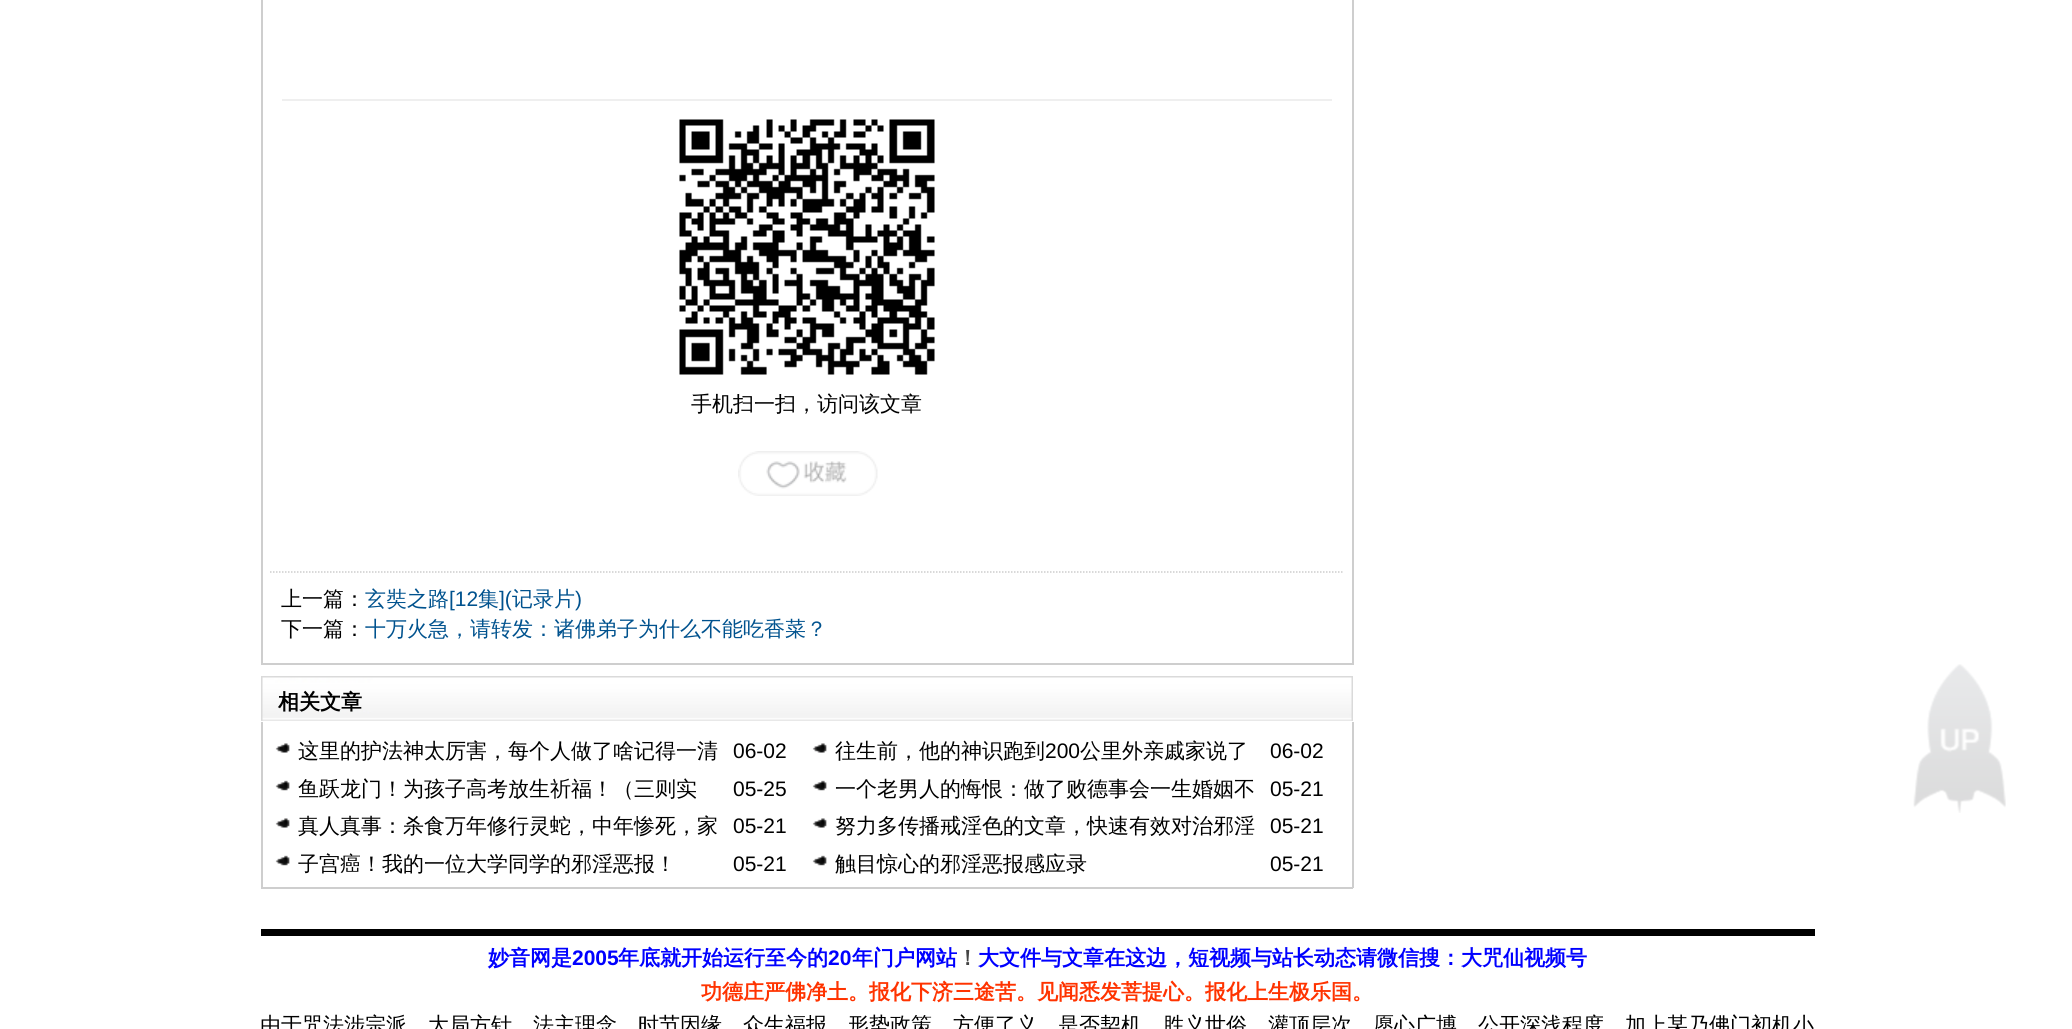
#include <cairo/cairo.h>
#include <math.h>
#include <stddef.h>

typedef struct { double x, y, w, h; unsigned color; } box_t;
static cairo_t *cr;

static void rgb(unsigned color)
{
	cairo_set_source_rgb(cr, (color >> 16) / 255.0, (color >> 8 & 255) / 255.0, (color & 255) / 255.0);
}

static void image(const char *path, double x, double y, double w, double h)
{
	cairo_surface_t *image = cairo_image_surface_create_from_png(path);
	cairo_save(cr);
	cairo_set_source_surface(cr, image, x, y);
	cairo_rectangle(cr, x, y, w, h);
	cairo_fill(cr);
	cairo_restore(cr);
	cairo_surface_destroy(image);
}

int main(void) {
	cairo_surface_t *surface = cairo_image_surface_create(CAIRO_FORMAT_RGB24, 2072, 1029);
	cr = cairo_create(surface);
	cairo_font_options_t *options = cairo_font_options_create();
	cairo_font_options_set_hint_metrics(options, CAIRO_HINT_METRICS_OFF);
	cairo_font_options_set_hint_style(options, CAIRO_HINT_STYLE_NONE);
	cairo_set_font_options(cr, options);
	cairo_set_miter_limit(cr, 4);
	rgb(0xffffff);
	cairo_paint(cr);
	{
		static const box_t items[] = {
			{1352, 0, 2, 665, 0xcecece},
			{261, 663, 1092, 2, 0xcecece},
			{261, 0, 2, 665, 0xcecece},
		};
		for (size_t i = 0; i < sizeof items / sizeof *items; i++) {
			rgb(items[i].color);
			cairo_rectangle(cr, items[i].x, items[i].y, items[i].w, items[i].h);
			cairo_fill(cr);
		}
	}
	cairo_new_path(cr);
	cairo_move_to(cr, 270, 572);
	cairo_line_to(cr, 1344, 572);
	rgb(0xcccccc);
	cairo_set_line_width(cr, 1.5);
	cairo_set_dash(cr, (double[]){1.5, 1.5}, 2, 0);
	cairo_stroke(cr);
	rgb(0xefefef);
	cairo_rectangle(cr, 282, 99, 1050, 2);
	cairo_fill(cr);
	image("img/1.png", 679, 119, 256, 256);
	image("img/2.png", 738, 451, 140, 45);
	image("img/3.png", 261, 676, 1092, 45);
	{
		static const box_t items[] = {
			{1352, 722, 2, 166, 0xcecece},
			{261, 887, 1092, 2, 0xcecece},
			{261, 722, 2, 166, 0xcecece},
		};
		for (size_t i = 0; i < sizeof items / sizeof *items; i++) {
			rgb(items[i].color);
			cairo_rectangle(cr, items[i].x, items[i].y, items[i].w, items[i].h);
			cairo_fill(cr);
		}
	}
	image("img/4.png", 275, 743, 15, 10);
	image("img/5.png", 812, 743, 15, 10);
	image("img/6.png", 275, 780, 15, 11);
	image("img/7.png", 812, 780, 15, 11);
	image("img/4.png", 275, 818, 15, 10);
	image("img/5.png", 812, 818, 15, 10);
	image("img/6.png", 275, 855, 15, 11);
	image("img/7.png", 812, 855, 15, 11);
	image("img/8.png", 1913, 664, 93, 149);
	rgb(0x000000);
	cairo_rectangle(cr, 261, 929, 1554, 7);
	cairo_fill(cr);
	cairo_select_font_face(cr, "WenQuanYi Zen Hei Medium", CAIRO_FONT_SLANT_NORMAL, CAIRO_FONT_WEIGHT_NORMAL);
	cairo_set_font_size(cr, 21);
	cairo_move_to(cr, 691, 411);
	cairo_show_text(cr, "手机扫一扫，访问该文章");
	cairo_move_to(cr, 281, 606);
	cairo_show_text(cr, "上一篇：");
	rgb(0x00528e);
	cairo_move_to(cr, 365, 606);
	cairo_show_text(cr, "玄奘之路");
	cairo_select_font_face(cr, "Liberation Sans", CAIRO_FONT_SLANT_NORMAL, CAIRO_FONT_WEIGHT_NORMAL);
	cairo_move_to(cr, 449, 606);
	cairo_show_text(cr, "[12");
	cairo_select_font_face(cr, "WenQuanYi Zen Hei Medium", CAIRO_FONT_SLANT_NORMAL, CAIRO_FONT_WEIGHT_NORMAL);
	cairo_move_to(cr, 478, 606);
	cairo_show_text(cr, "集");
	cairo_select_font_face(cr, "Liberation Sans", CAIRO_FONT_SLANT_NORMAL, CAIRO_FONT_WEIGHT_NORMAL);
	cairo_move_to(cr, 499, 606);
	cairo_show_text(cr, "](");
	cairo_select_font_face(cr, "WenQuanYi Zen Hei Medium", CAIRO_FONT_SLANT_NORMAL, CAIRO_FONT_WEIGHT_NORMAL);
	cairo_move_to(cr, 512, 606);
	cairo_show_text(cr, "记录片");
	cairo_select_font_face(cr, "Liberation Sans", CAIRO_FONT_SLANT_NORMAL, CAIRO_FONT_WEIGHT_NORMAL);
	cairo_move_to(cr, 575, 606);
	cairo_show_text(cr, ")");
	cairo_select_font_face(cr, "WenQuanYi Zen Hei Medium", CAIRO_FONT_SLANT_NORMAL, CAIRO_FONT_WEIGHT_NORMAL);
	rgb(0x000000);
	cairo_move_to(cr, 281, 636);
	cairo_show_text(cr, "下一篇：");
	rgb(0x00528e);
	cairo_move_to(cr, 365, 636);
	cairo_show_text(cr, "十万火急，请转发：诸佛弟子为什么不能吃香菜？");
	cairo_select_font_face(cr, "WenQuanYi Zen Hei", CAIRO_FONT_SLANT_NORMAL, CAIRO_FONT_WEIGHT_BOLD);
	rgb(0x000000);
	cairo_move_to(cr, 278, 709);
	cairo_show_text(cr, "相关文章");
	cairo_select_font_face(cr, "WenQuanYi Zen Hei Medium", CAIRO_FONT_SLANT_NORMAL, CAIRO_FONT_WEIGHT_NORMAL);
	cairo_move_to(cr, 298, 758);
	cairo_show_text(cr, "这里的护法神太厉害，每个人做了啥记得一清");
	cairo_select_font_face(cr, "Liberation Sans", CAIRO_FONT_SLANT_NORMAL, CAIRO_FONT_WEIGHT_NORMAL);
	cairo_move_to(cr, 733, 758);
	cairo_show_text(cr, "06-02");
	cairo_select_font_face(cr, "WenQuanYi Zen Hei Medium", CAIRO_FONT_SLANT_NORMAL, CAIRO_FONT_WEIGHT_NORMAL);
	cairo_move_to(cr, 835, 758);
	cairo_show_text(cr, "往生前，他的神识跑到");
	cairo_select_font_face(cr, "Liberation Sans", CAIRO_FONT_SLANT_NORMAL, CAIRO_FONT_WEIGHT_NORMAL);
	cairo_move_to(cr, 1045, 758);
	cairo_show_text(cr, "200");
	cairo_select_font_face(cr, "WenQuanYi Zen Hei Medium", CAIRO_FONT_SLANT_NORMAL, CAIRO_FONT_WEIGHT_NORMAL);
	cairo_move_to(cr, 1080, 758);
	cairo_show_text(cr, "公里外亲戚家说了");
	cairo_select_font_face(cr, "Liberation Sans", CAIRO_FONT_SLANT_NORMAL, CAIRO_FONT_WEIGHT_NORMAL);
	cairo_move_to(cr, 1270, 758);
	cairo_show_text(cr, "06-02");
	cairo_select_font_face(cr, "WenQuanYi Zen Hei Medium", CAIRO_FONT_SLANT_NORMAL, CAIRO_FONT_WEIGHT_NORMAL);
	cairo_move_to(cr, 298, 796);
	cairo_show_text(cr, "鱼跃龙门！为孩子高考放生祈福！（三则实");
	cairo_select_font_face(cr, "Liberation Sans", CAIRO_FONT_SLANT_NORMAL, CAIRO_FONT_WEIGHT_NORMAL);
	cairo_move_to(cr, 733, 796);
	cairo_show_text(cr, "05-25");
	cairo_select_font_face(cr, "WenQuanYi Zen Hei Medium", CAIRO_FONT_SLANT_NORMAL, CAIRO_FONT_WEIGHT_NORMAL);
	cairo_move_to(cr, 835, 796);
	cairo_show_text(cr, "一个老男人的悔恨：做了败德事会一生婚姻不");
	cairo_select_font_face(cr, "Liberation Sans", CAIRO_FONT_SLANT_NORMAL, CAIRO_FONT_WEIGHT_NORMAL);
	cairo_move_to(cr, 1270, 796);
	cairo_show_text(cr, "05-21");
	cairo_select_font_face(cr, "WenQuanYi Zen Hei Medium", CAIRO_FONT_SLANT_NORMAL, CAIRO_FONT_WEIGHT_NORMAL);
	cairo_move_to(cr, 298, 833);
	cairo_show_text(cr, "真人真事：杀食万年修行灵蛇，中年惨死，家");
	cairo_select_font_face(cr, "Liberation Sans", CAIRO_FONT_SLANT_NORMAL, CAIRO_FONT_WEIGHT_NORMAL);
	cairo_move_to(cr, 733, 833);
	cairo_show_text(cr, "05-21");
	cairo_select_font_face(cr, "WenQuanYi Zen Hei Medium", CAIRO_FONT_SLANT_NORMAL, CAIRO_FONT_WEIGHT_NORMAL);
	cairo_move_to(cr, 835, 833);
	cairo_show_text(cr, "努力多传播戒淫色的文章，快速有效对治邪淫");
	cairo_select_font_face(cr, "Liberation Sans", CAIRO_FONT_SLANT_NORMAL, CAIRO_FONT_WEIGHT_NORMAL);
	cairo_move_to(cr, 1270, 833);
	cairo_show_text(cr, "05-21");
	cairo_select_font_face(cr, "WenQuanYi Zen Hei Medium", CAIRO_FONT_SLANT_NORMAL, CAIRO_FONT_WEIGHT_NORMAL);
	cairo_move_to(cr, 298, 871);
	cairo_show_text(cr, "子宫癌！我的一位大学同学的邪淫恶报！");
	cairo_select_font_face(cr, "Liberation Sans", CAIRO_FONT_SLANT_NORMAL, CAIRO_FONT_WEIGHT_NORMAL);
	cairo_move_to(cr, 733, 871);
	cairo_show_text(cr, "05-21");
	cairo_select_font_face(cr, "WenQuanYi Zen Hei Medium", CAIRO_FONT_SLANT_NORMAL, CAIRO_FONT_WEIGHT_NORMAL);
	cairo_move_to(cr, 835, 871);
	cairo_show_text(cr, "触目惊心的邪淫恶报感应录");
	cairo_select_font_face(cr, "Liberation Sans", CAIRO_FONT_SLANT_NORMAL, CAIRO_FONT_WEIGHT_NORMAL);
	cairo_move_to(cr, 1270, 871);
	cairo_show_text(cr, "05-21");
	cairo_select_font_face(cr, "WenQuanYi Zen Hei", CAIRO_FONT_SLANT_NORMAL, CAIRO_FONT_WEIGHT_BOLD);
	rgb(0x0000ff);
	cairo_move_to(cr, 488, 965);
	cairo_show_text(cr, "妙音网是");
	cairo_select_font_face(cr, "Liberation Sans", CAIRO_FONT_SLANT_NORMAL, CAIRO_FONT_WEIGHT_BOLD);
	cairo_move_to(cr, 572, 965);
	cairo_show_text(cr, "2005");
	cairo_select_font_face(cr, "WenQuanYi Zen Hei", CAIRO_FONT_SLANT_NORMAL, CAIRO_FONT_WEIGHT_BOLD);
	cairo_move_to(cr, 618, 965);
	cairo_show_text(cr, "年底就开始运行至今的");
	cairo_select_font_face(cr, "Liberation Sans", CAIRO_FONT_SLANT_NORMAL, CAIRO_FONT_WEIGHT_BOLD);
	cairo_move_to(cr, 828, 965);
	cairo_show_text(cr, "20");
	cairo_select_font_face(cr, "WenQuanYi Zen Hei", CAIRO_FONT_SLANT_NORMAL, CAIRO_FONT_WEIGHT_BOLD);
	cairo_move_to(cr, 852, 965);
	cairo_show_text(cr, "年门户网站");
	rgb(0x444444);
	cairo_move_to(cr, 957, 965);
	cairo_show_text(cr, "！");
	rgb(0x0000ff);
	cairo_move_to(cr, 978, 965);
	cairo_show_text(cr, "大文件与文章在这边，短视频与站长动态请微信搜：大咒仙视频号");
	rgb(0xff3300);
	cairo_move_to(cr, 701, 999);
	cairo_show_text(cr, "功德庄严佛净土。报化下济三途苦。见闻悉发菩提心。报化上生极乐国。");
	cairo_select_font_face(cr, "WenQuanYi Zen Hei Medium", CAIRO_FONT_SLANT_NORMAL, CAIRO_FONT_WEIGHT_NORMAL);
	rgb(0x000000);
	cairo_move_to(cr, 260, 1032);
	cairo_show_text(cr, "由于咒法涉宗派、大局方针、法主理念、时节因缘、众生福报、形势政策、方便了义、是否契机、胜义世俗、灌顶层次、愿心广博、公开深浅程度，加上某乃佛门初机小");
	cairo_surface_write_to_png(surface, "page.png");
	cairo_font_options_destroy(options);
	cairo_destroy(cr);
	cairo_surface_destroy(surface);
	return 0;
}
